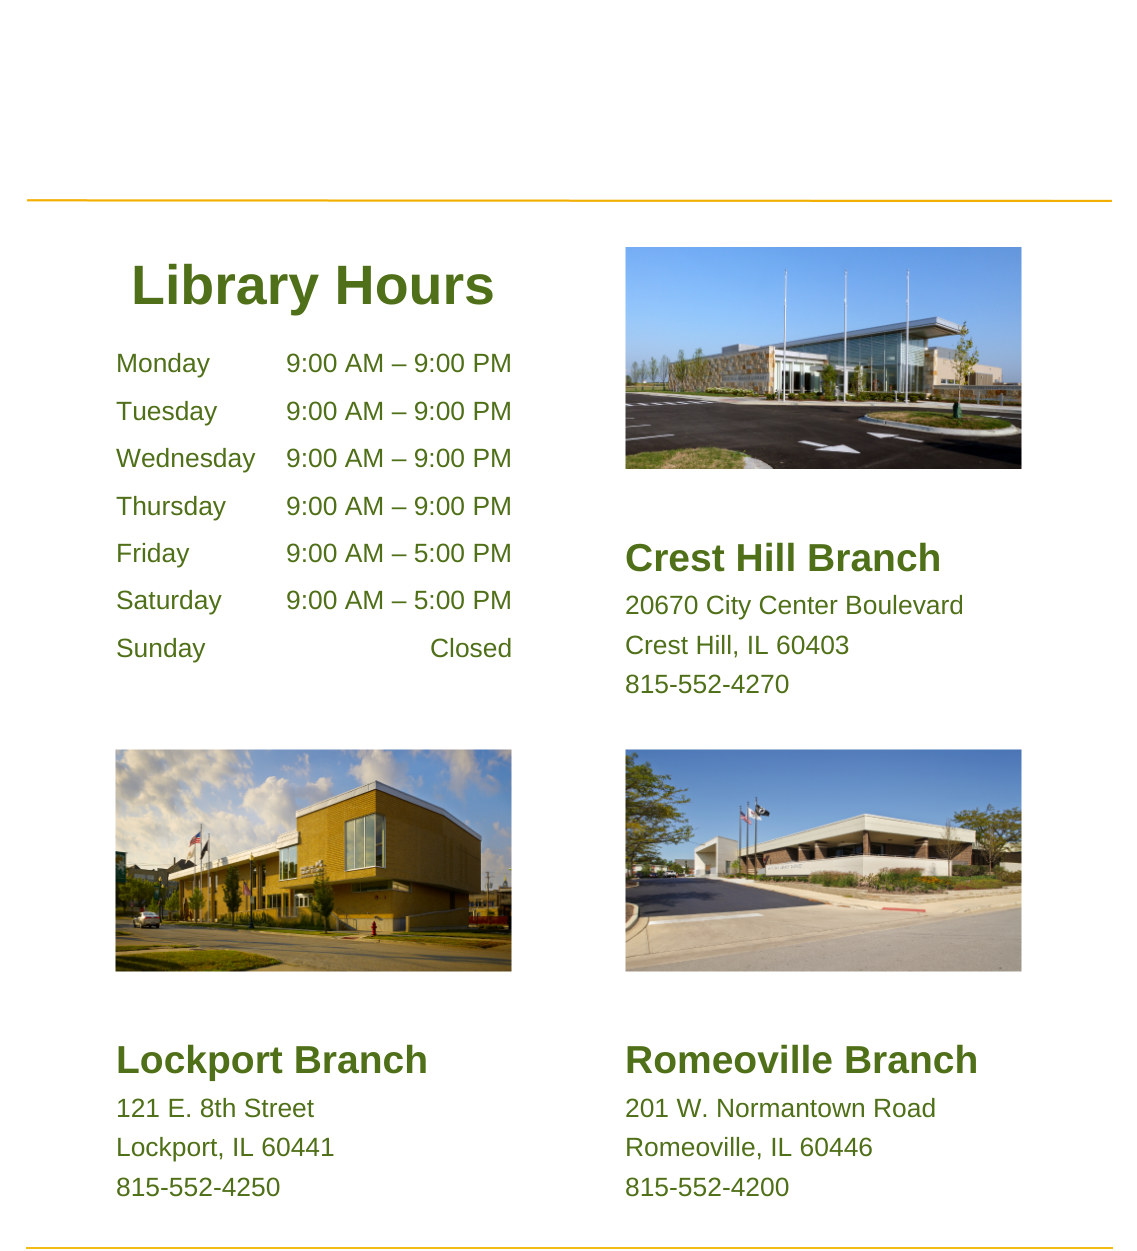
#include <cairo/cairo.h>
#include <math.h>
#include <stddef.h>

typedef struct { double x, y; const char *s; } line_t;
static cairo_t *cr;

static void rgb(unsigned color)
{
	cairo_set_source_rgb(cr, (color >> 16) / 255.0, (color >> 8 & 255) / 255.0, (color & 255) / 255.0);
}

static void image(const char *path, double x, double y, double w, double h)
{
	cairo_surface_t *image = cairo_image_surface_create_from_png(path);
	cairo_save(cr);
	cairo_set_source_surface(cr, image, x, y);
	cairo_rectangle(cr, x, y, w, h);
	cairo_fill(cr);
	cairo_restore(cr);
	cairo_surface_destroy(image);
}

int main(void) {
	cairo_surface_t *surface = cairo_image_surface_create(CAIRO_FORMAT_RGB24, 1137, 1251);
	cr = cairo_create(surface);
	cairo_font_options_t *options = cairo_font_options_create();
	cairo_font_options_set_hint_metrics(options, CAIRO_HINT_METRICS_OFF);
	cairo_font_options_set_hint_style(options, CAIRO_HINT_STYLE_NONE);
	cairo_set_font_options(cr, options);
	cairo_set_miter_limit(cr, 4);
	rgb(0xffffff);
	cairo_paint(cr);
	image("img/1.png", 26, 199, 1086, 3);
	image("img/2.png", 625, 247, 397, 222);
	image("img/3.png", 115, 749, 397, 223);
	image("img/4.png", 625, 749, 397, 223);
	rgb(0xf4bb17);
	cairo_rectangle(cr, 26, 1247, 1087, 2);
	cairo_fill(cr);
	cairo_select_font_face(cr, "Liberation Sans", CAIRO_FONT_SLANT_NORMAL, CAIRO_FONT_WEIGHT_BOLD);
	cairo_set_font_size(cr, 55.5);
	rgb(0x4f6f18);
	cairo_move_to(cr, 131, 304);
	cairo_show_text(cr, "Library Hours");
	cairo_select_font_face(cr, "Liberation Sans", CAIRO_FONT_SLANT_NORMAL, CAIRO_FONT_WEIGHT_NORMAL);
	cairo_set_font_size(cr, 26.4);
	{
		static const line_t items[] = {
			{116, 372, "Monday"},
			{286, 372, "9:00 AM – 9:00 PM"},
			{116, 420, "Tuesday"},
			{286, 420, "9:00 AM – 9:00 PM"},
			{116, 467, "Wednesday"},
			{286, 467, "9:00 AM – 9:00 PM"},
			{116, 515, "Thursday"},
			{286, 515, "9:00 AM – 9:00 PM"},
			{116, 562, "Friday"},
			{286, 562, "9:00 AM – 5:00 PM"},
			{116, 609, "Saturday"},
			{286, 609, "9:00 AM – 5:00 PM"},
			{116, 657, "Sunday"},
			{430, 657, "Closed"},
		};
		for (size_t i = 0; i < sizeof items / sizeof *items; i++) {
			cairo_move_to(cr, items[i].x, items[i].y);
			cairo_show_text(cr, items[i].s);
		}
	}
	cairo_select_font_face(cr, "Liberation Sans", CAIRO_FONT_SLANT_NORMAL, CAIRO_FONT_WEIGHT_BOLD);
	cairo_set_font_size(cr, 39);
	cairo_move_to(cr, 625, 571);
	cairo_show_text(cr, "Crest Hill Branch");
	cairo_select_font_face(cr, "Liberation Sans", CAIRO_FONT_SLANT_NORMAL, CAIRO_FONT_WEIGHT_NORMAL);
	cairo_set_font_size(cr, 26.4);
	{
		static const line_t items[] = {
			{625, 614, "20670 City Center Boulevard"},
			{625, 654, "Crest Hill, IL 60403"},
			{625, 693, "815-552-4270"},
		};
		for (size_t i = 0; i < sizeof items / sizeof *items; i++) {
			cairo_move_to(cr, items[i].x, items[i].y);
			cairo_show_text(cr, items[i].s);
		}
	}
	cairo_select_font_face(cr, "Liberation Sans", CAIRO_FONT_SLANT_NORMAL, CAIRO_FONT_WEIGHT_BOLD);
	cairo_set_font_size(cr, 39);
	cairo_move_to(cr, 116, 1073);
	cairo_show_text(cr, "Lockport Branch");
	cairo_select_font_face(cr, "Liberation Sans", CAIRO_FONT_SLANT_NORMAL, CAIRO_FONT_WEIGHT_NORMAL);
	cairo_set_font_size(cr, 26.4);
	{
		static const line_t items[] = {
			{116, 1117, "121 E. 8th Street"},
			{116, 1156, "Lockport, IL 60441"},
			{116, 1196, "815-552-4250"},
		};
		for (size_t i = 0; i < sizeof items / sizeof *items; i++) {
			cairo_move_to(cr, items[i].x, items[i].y);
			cairo_show_text(cr, items[i].s);
		}
	}
	cairo_select_font_face(cr, "Liberation Sans", CAIRO_FONT_SLANT_NORMAL, CAIRO_FONT_WEIGHT_BOLD);
	cairo_set_font_size(cr, 39);
	cairo_move_to(cr, 625, 1073);
	cairo_show_text(cr, "Romeoville Branch");
	cairo_select_font_face(cr, "Liberation Sans", CAIRO_FONT_SLANT_NORMAL, CAIRO_FONT_WEIGHT_NORMAL);
	cairo_set_font_size(cr, 26.4);
	{
		static const line_t items[] = {
			{625, 1117, "201 W. Normantown Road"},
			{625, 1156, "Romeoville, IL 60446"},
			{625, 1196, "815-552-4200"},
		};
		for (size_t i = 0; i < sizeof items / sizeof *items; i++) {
			cairo_move_to(cr, items[i].x, items[i].y);
			cairo_show_text(cr, items[i].s);
		}
	}
	cairo_surface_write_to_png(surface, "page.png");
	cairo_font_options_destroy(options);
	cairo_destroy(cr);
	cairo_surface_destroy(surface);
	return 0;
}
